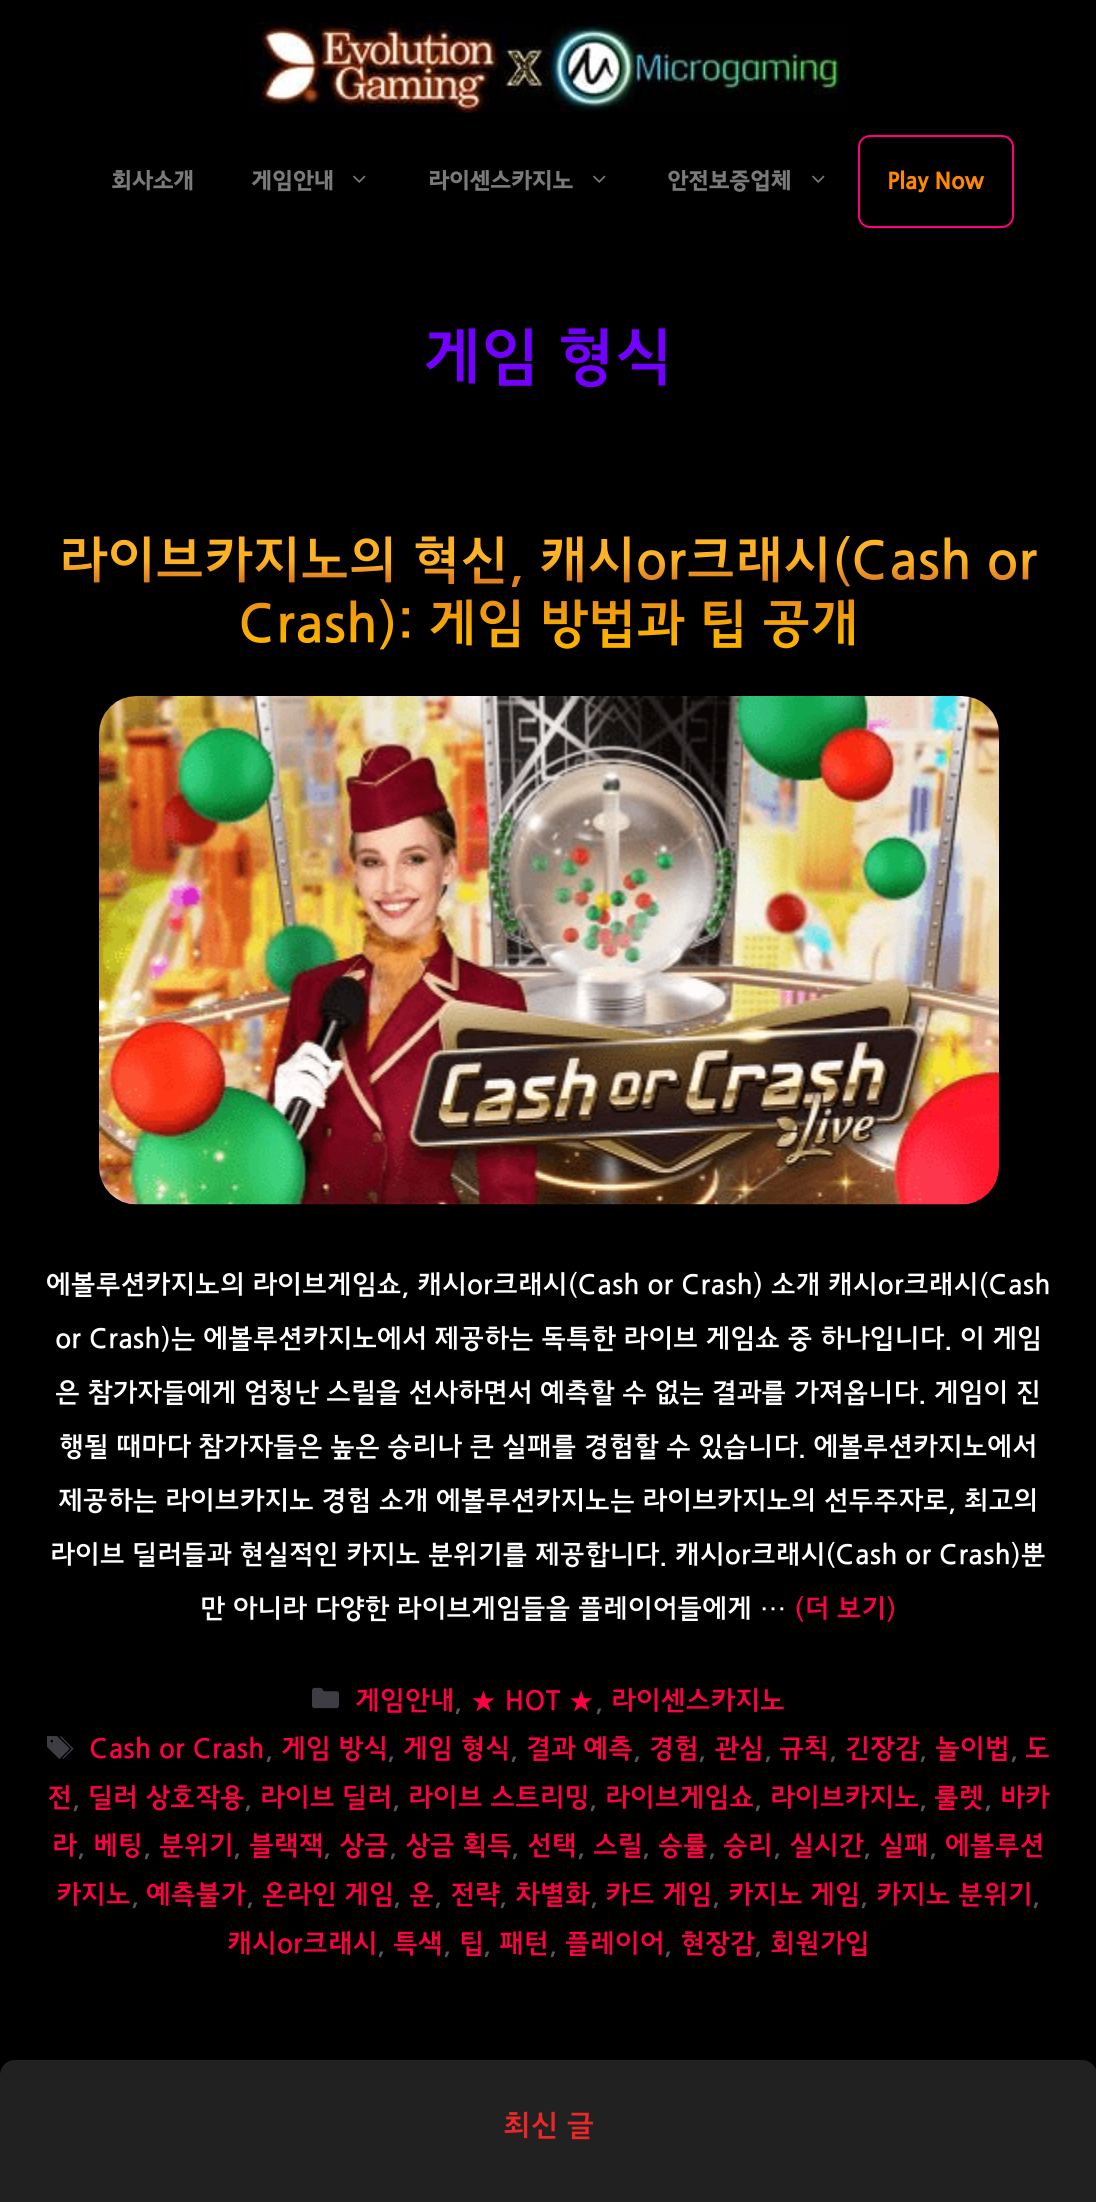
#include <cairo/cairo.h>
#include <math.h>
#include <stddef.h>

typedef struct { double x, y; const char *s; } line_t;
static cairo_t *cr;

static void rgb(unsigned color)
{
	cairo_set_source_rgb(cr, (color >> 16) / 255.0, (color >> 8 & 255) / 255.0, (color & 255) / 255.0);
}

static void rrect(double x, double y, double w, double h, double r)
{
	cairo_new_sub_path(cr);
	cairo_arc(cr, x + w - r, y + h - r, r, 0, M_PI / 2);
	cairo_arc(cr, x + r, y + h - r, r, M_PI / 2, M_PI);
	cairo_arc(cr, x + r, y + r, r, M_PI, 1.5 * M_PI);
	cairo_arc(cr, x + w - r, y + r, r, 1.5 * M_PI, 2 * M_PI);
	cairo_close_path(cr);
}

static void image(const char *path, double x, double y, double w, double h)
{
	cairo_surface_t *image = cairo_image_surface_create_from_png(path);
	cairo_save(cr);
	cairo_set_source_surface(cr, image, x, y);
	cairo_rectangle(cr, x, y, w, h);
	cairo_fill(cr);
	cairo_restore(cr);
	cairo_surface_destroy(image);
}

int main(void) {
	cairo_surface_t *surface = cairo_image_surface_create(CAIRO_FORMAT_RGB24, 1096, 2202);
	cr = cairo_create(surface);
	cairo_font_options_t *options = cairo_font_options_create();
	cairo_font_options_set_hint_metrics(options, CAIRO_HINT_METRICS_OFF);
	cairo_font_options_set_hint_style(options, CAIRO_HINT_STYLE_NONE);
	cairo_set_font_options(cr, options);
	cairo_set_miter_limit(cr, 4);
	cairo_pattern_t *gradient;
	rgb(0x000000);
	cairo_paint(cr);
	image("img/1.png", 249, 22, 600, 91);
	image("img/2.png", 353, 175, 13, 8);
	image("img/2.png", 593, 175, 13, 8);
	image("img/2.png", 812, 175, 13, 8);
	rrect(859, 136, 154, 91, 11);
	rgb(0xff0080);
	cairo_stroke(cr);
	image("img/3.png", 99, 696, 900, 509);
	image("img/4.png", 312, 1687, 27, 22);
	image("img/5.png", 47, 1736, 27, 23);
	rgb(0x212121);
	rrect(0, 2060, 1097, 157, 15);
	cairo_fill(cr);
	cairo_select_font_face(cr, "JejuGothic", CAIRO_FONT_SLANT_NORMAL, CAIRO_FONT_WEIGHT_BOLD);
	cairo_set_font_size(cr, 22.5);
	rgb(0x7a7a7a);
	{
		static const line_t items[] = {
			{111, 188, "회사소개"},
			{251, 188, "게임안내"},
			{428, 188, "라이센스카지노"},
			{667, 188, "안전보증업체"},
		};
		for (size_t i = 0; i < sizeof items / sizeof *items; i++) {
			cairo_move_to(cr, items[i].x, items[i].y);
			cairo_show_text(cr, items[i].s);
		}
	}
	rgb(0xff8800);
	cairo_move_to(cr, 887, 188);
	cairo_show_text(cr, "Play Now");
	cairo_select_font_face(cr, "JejuGothic", CAIRO_FONT_SLANT_NORMAL, CAIRO_FONT_WEIGHT_NORMAL);
	cairo_set_font_size(cr, 63);
	rgb(0x7300ff);
	cairo_move_to(cr, 423, 377);
	cairo_show_text(cr, "게임 형식");
	cairo_set_font_size(cr, 52.5);
	gradient = cairo_pattern_create_linear(548, 530, 548, 656);
	cairo_pattern_add_color_stop_rgba(gradient, 0.25, 0.992, 0.694, 0.145, 1);
	cairo_pattern_add_color_stop_rgba(gradient, 0.4, 0.878, 0.494, 0.118, 1);
	cairo_pattern_add_color_stop_rgba(gradient, 0.85, 0.988, 0.694, 0, 1);
	cairo_set_source(cr, gradient);
	cairo_pattern_destroy(gradient);
	cairo_move_to(cr, 59, 577);
	cairo_show_text(cr, "라이브카지노의 혁신, 캐시or크래시(Cash or");
	cairo_move_to(cr, 238, 640);
	cairo_show_text(cr, "Crash): 게임 방법과 팁 공개");
	cairo_set_font_size(cr, 27);
	rgb(0xffffff);
	{
		static const line_t items[] = {
			{46, 1293, "에볼루션카지노의 라이브게임쇼, 캐시or크래시(Cash or Crash) 소개 캐시or크래시(Cash"},
			{55, 1347, "or Crash)는 에볼루션카지노에서 제공하는 독특한 라이브 게임쇼 중 하나입니다. 이 게임"},
			{55, 1401, "은 참가자들에게 엄청난 스릴을 선사하면서 예측할 수 없는 결과를 가져옵니다. 게임이 진"},
			{59, 1455, "행될 때마다 참가자들은 높은 승리나 큰 실패를 경험할 수 있습니다. 에볼루션카지노에서"},
			{58, 1509, "제공하는 라이브카지노 경험 소개 에볼루션카지노는 라이브카지노의 선두주자로, 최고의"},
			{50, 1563, "라이브 딜러들과 현실적인 카지노 분위기를 제공합니다. 캐시or크래시(Cash or Crash)뿐"},
			{200, 1617, "만 아니라 다양한 라이브게임들을 플레이어들에게 …"},
		};
		for (size_t i = 0; i < sizeof items / sizeof *items; i++) {
			cairo_move_to(cr, items[i].x, items[i].y);
			cairo_show_text(cr, items[i].s);
		}
	}
	rgb(0xff0043);
	cairo_move_to(cr, 794, 1617);
	cairo_show_text(cr, "(더 보기)");
	cairo_move_to(cr, 355, 1709);
	cairo_show_text(cr, "게임안내");
	rgb(0x575760);
	cairo_move_to(cr, 454, 1709);
	cairo_show_text(cr, ",");
	rgb(0xff0043);
	cairo_move_to(cr, 470, 1709);
	cairo_show_text(cr, "★ HOT ★");
	rgb(0x575760);
	cairo_move_to(cr, 595, 1709);
	cairo_show_text(cr, ",");
	rgb(0xff0043);
	{
		static const line_t items[] = {
			{611, 1709, "라이센스카지노"},
			{89, 1757, "Cash or Crash"},
			{281, 1757, "게임 방식"},
			{403, 1757, "게임 형식"},
			{526, 1757, "결과 예측"},
			{649, 1757, "경험"},
			{714, 1757, "관심"},
			{779, 1757, "규칙"},
			{845, 1757, "긴장감"},
			{935, 1757, "놀이법"},
			{1025, 1757, "도"},
		};
		for (size_t i = 0; i < sizeof items / sizeof *items; i++) {
			cairo_move_to(cr, items[i].x, items[i].y);
			cairo_show_text(cr, items[i].s);
		}
	}
	rgb(0x575760);
	{
		static const line_t items[] = {
			{265, 1757, ","},
			{387, 1757, ","},
			{510, 1757, ","},
			{633, 1757, ","},
			{698, 1757, ","},
			{764, 1757, ","},
			{829, 1757, ","},
			{919, 1757, ","},
			{1010, 1757, ","},
		};
		for (size_t i = 0; i < sizeof items / sizeof *items; i++) {
			cairo_move_to(cr, items[i].x, items[i].y);
			cairo_show_text(cr, items[i].s);
		}
	}
	rgb(0xff0043);
	cairo_move_to(cr, 47, 1806);
	cairo_show_text(cr, "전");
	rgb(0x575760);
	cairo_move_to(cr, 72, 1806);
	cairo_show_text(cr, ",");
	rgb(0xff0043);
	cairo_move_to(cr, 88, 1806);
	cairo_show_text(cr, "딜러 상호작용");
	rgb(0x575760);
	cairo_move_to(cr, 244, 1806);
	cairo_show_text(cr, ",");
	rgb(0xff0043);
	cairo_move_to(cr, 260, 1806);
	cairo_show_text(cr, "라이브 딜러");
	rgb(0x575760);
	cairo_move_to(cr, 392, 1806);
	cairo_show_text(cr, ",");
	rgb(0xff0043);
	cairo_move_to(cr, 408, 1806);
	cairo_show_text(cr, "라이브 스트리밍");
	rgb(0x575760);
	cairo_move_to(cr, 589, 1806);
	cairo_show_text(cr, ",");
	rgb(0xff0043);
	cairo_move_to(cr, 605, 1806);
	cairo_show_text(cr, "라이브게임쇼");
	rgb(0x575760);
	cairo_move_to(cr, 754, 1806);
	cairo_show_text(cr, ",");
	rgb(0xff0043);
	cairo_move_to(cr, 770, 1806);
	cairo_show_text(cr, "라이브카지노");
	rgb(0x575760);
	cairo_move_to(cr, 919, 1806);
	cairo_show_text(cr, ",");
	rgb(0xff0043);
	cairo_move_to(cr, 934, 1806);
	cairo_show_text(cr, "룰렛");
	rgb(0x575760);
	cairo_move_to(cr, 984, 1806);
	cairo_show_text(cr, ",");
	rgb(0xff0043);
	cairo_move_to(cr, 1000, 1806);
	cairo_show_text(cr, "바카");
	cairo_move_to(cr, 52, 1854);
	cairo_show_text(cr, "라");
	rgb(0x575760);
	cairo_move_to(cr, 77, 1854);
	cairo_show_text(cr, ",");
	rgb(0xff0043);
	cairo_move_to(cr, 93, 1854);
	cairo_show_text(cr, "베팅");
	rgb(0x575760);
	cairo_move_to(cr, 143, 1854);
	cairo_show_text(cr, ",");
	rgb(0xff0043);
	cairo_move_to(cr, 159, 1854);
	cairo_show_text(cr, "분위기");
	rgb(0x575760);
	cairo_move_to(cr, 233, 1854);
	cairo_show_text(cr, ",");
	rgb(0xff0043);
	cairo_move_to(cr, 249, 1854);
	cairo_show_text(cr, "블랙잭");
	rgb(0x575760);
	cairo_move_to(cr, 323, 1854);
	cairo_show_text(cr, ",");
	rgb(0xff0043);
	cairo_move_to(cr, 339, 1854);
	cairo_show_text(cr, "상금");
	rgb(0x575760);
	cairo_move_to(cr, 389, 1854);
	cairo_show_text(cr, ",");
	rgb(0xff0043);
	cairo_move_to(cr, 405, 1854);
	cairo_show_text(cr, "상금 획득");
	rgb(0x575760);
	cairo_move_to(cr, 511, 1854);
	cairo_show_text(cr, ",");
	rgb(0xff0043);
	cairo_move_to(cr, 527, 1854);
	cairo_show_text(cr, "선택");
	rgb(0x575760);
	cairo_move_to(cr, 577, 1854);
	cairo_show_text(cr, ",");
	rgb(0xff0043);
	cairo_move_to(cr, 593, 1854);
	cairo_show_text(cr, "스릴");
	rgb(0x575760);
	cairo_move_to(cr, 642, 1854);
	cairo_show_text(cr, ",");
	rgb(0xff0043);
	cairo_move_to(cr, 658, 1854);
	cairo_show_text(cr, "승률");
	rgb(0x575760);
	cairo_move_to(cr, 708, 1854);
	cairo_show_text(cr, ",");
	rgb(0xff0043);
	cairo_move_to(cr, 723, 1854);
	cairo_show_text(cr, "승리");
	rgb(0x575760);
	cairo_move_to(cr, 773, 1854);
	cairo_show_text(cr, ",");
	rgb(0xff0043);
	cairo_move_to(cr, 789, 1854);
	cairo_show_text(cr, "실시간");
	rgb(0x575760);
	cairo_move_to(cr, 863, 1854);
	cairo_show_text(cr, ",");
	rgb(0xff0043);
	cairo_move_to(cr, 879, 1854);
	cairo_show_text(cr, "실패");
	rgb(0x575760);
	cairo_move_to(cr, 929, 1854);
	cairo_show_text(cr, ",");
	rgb(0xff0043);
	cairo_move_to(cr, 945, 1854);
	cairo_show_text(cr, "에볼루션");
	cairo_move_to(cr, 56, 1903);
	cairo_show_text(cr, "카지노");
	rgb(0x575760);
	cairo_move_to(cr, 131, 1903);
	cairo_show_text(cr, ",");
	rgb(0xff0043);
	cairo_move_to(cr, 146, 1903);
	cairo_show_text(cr, "예측불가");
	rgb(0x575760);
	cairo_move_to(cr, 246, 1903);
	cairo_show_text(cr, ",");
	rgb(0xff0043);
	cairo_move_to(cr, 262, 1903);
	cairo_show_text(cr, "온라인 게임");
	rgb(0x575760);
	cairo_move_to(cr, 393, 1903);
	cairo_show_text(cr, ",");
	rgb(0xff0043);
	cairo_move_to(cr, 409, 1903);
	cairo_show_text(cr, "운");
	rgb(0x575760);
	cairo_move_to(cr, 434, 1903);
	cairo_show_text(cr, ",");
	rgb(0xff0043);
	cairo_move_to(cr, 450, 1903);
	cairo_show_text(cr, "전략");
	rgb(0x575760);
	cairo_move_to(cr, 499, 1903);
	cairo_show_text(cr, ",");
	rgb(0xff0043);
	cairo_move_to(cr, 515, 1903);
	cairo_show_text(cr, "차별화");
	rgb(0x575760);
	cairo_move_to(cr, 590, 1903);
	cairo_show_text(cr, ",");
	rgb(0xff0043);
	cairo_move_to(cr, 605, 1903);
	cairo_show_text(cr, "카드 게임");
	rgb(0x575760);
	cairo_move_to(cr, 712, 1903);
	cairo_show_text(cr, ",");
	rgb(0xff0043);
	cairo_move_to(cr, 728, 1903);
	cairo_show_text(cr, "카지노 게임");
	rgb(0x575760);
	cairo_move_to(cr, 860, 1903);
	cairo_show_text(cr, ",");
	rgb(0xff0043);
	cairo_move_to(cr, 876, 1903);
	cairo_show_text(cr, "카지노 분위기");
	rgb(0x575760);
	cairo_move_to(cr, 1032, 1903);
	cairo_show_text(cr, ",");
	rgb(0xff0043);
	cairo_move_to(cr, 227, 1952);
	cairo_show_text(cr, "캐시or크래시");
	rgb(0x575760);
	cairo_move_to(cr, 377, 1952);
	cairo_show_text(cr, ",");
	rgb(0xff0043);
	cairo_move_to(cr, 393, 1952);
	cairo_show_text(cr, "특색");
	rgb(0x575760);
	cairo_move_to(cr, 443, 1952);
	cairo_show_text(cr, ",");
	rgb(0xff0043);
	cairo_move_to(cr, 459, 1952);
	cairo_show_text(cr, "팁");
	rgb(0x575760);
	cairo_move_to(cr, 483, 1952);
	cairo_show_text(cr, ",");
	rgb(0xff0043);
	cairo_move_to(cr, 499, 1952);
	cairo_show_text(cr, "패턴");
	rgb(0x575760);
	cairo_move_to(cr, 549, 1952);
	cairo_show_text(cr, ",");
	rgb(0xff0043);
	cairo_move_to(cr, 565, 1952);
	cairo_show_text(cr, "플레이어");
	rgb(0x575760);
	cairo_move_to(cr, 664, 1952);
	cairo_show_text(cr, ",");
	rgb(0xff0043);
	cairo_move_to(cr, 680, 1952);
	cairo_show_text(cr, "현장감");
	rgb(0x575760);
	cairo_move_to(cr, 754, 1952);
	cairo_show_text(cr, ",");
	rgb(0xff0043);
	cairo_move_to(cr, 770, 1952);
	cairo_show_text(cr, "회원가입");
	cairo_set_font_size(cr, 30);
	rgb(0xec2727);
	cairo_move_to(cr, 503, 2135);
	cairo_show_text(cr, "최신 글");
	cairo_surface_write_to_png(surface, "page.png");
	cairo_font_options_destroy(options);
	cairo_destroy(cr);
	cairo_surface_destroy(surface);
	return 0;
}
